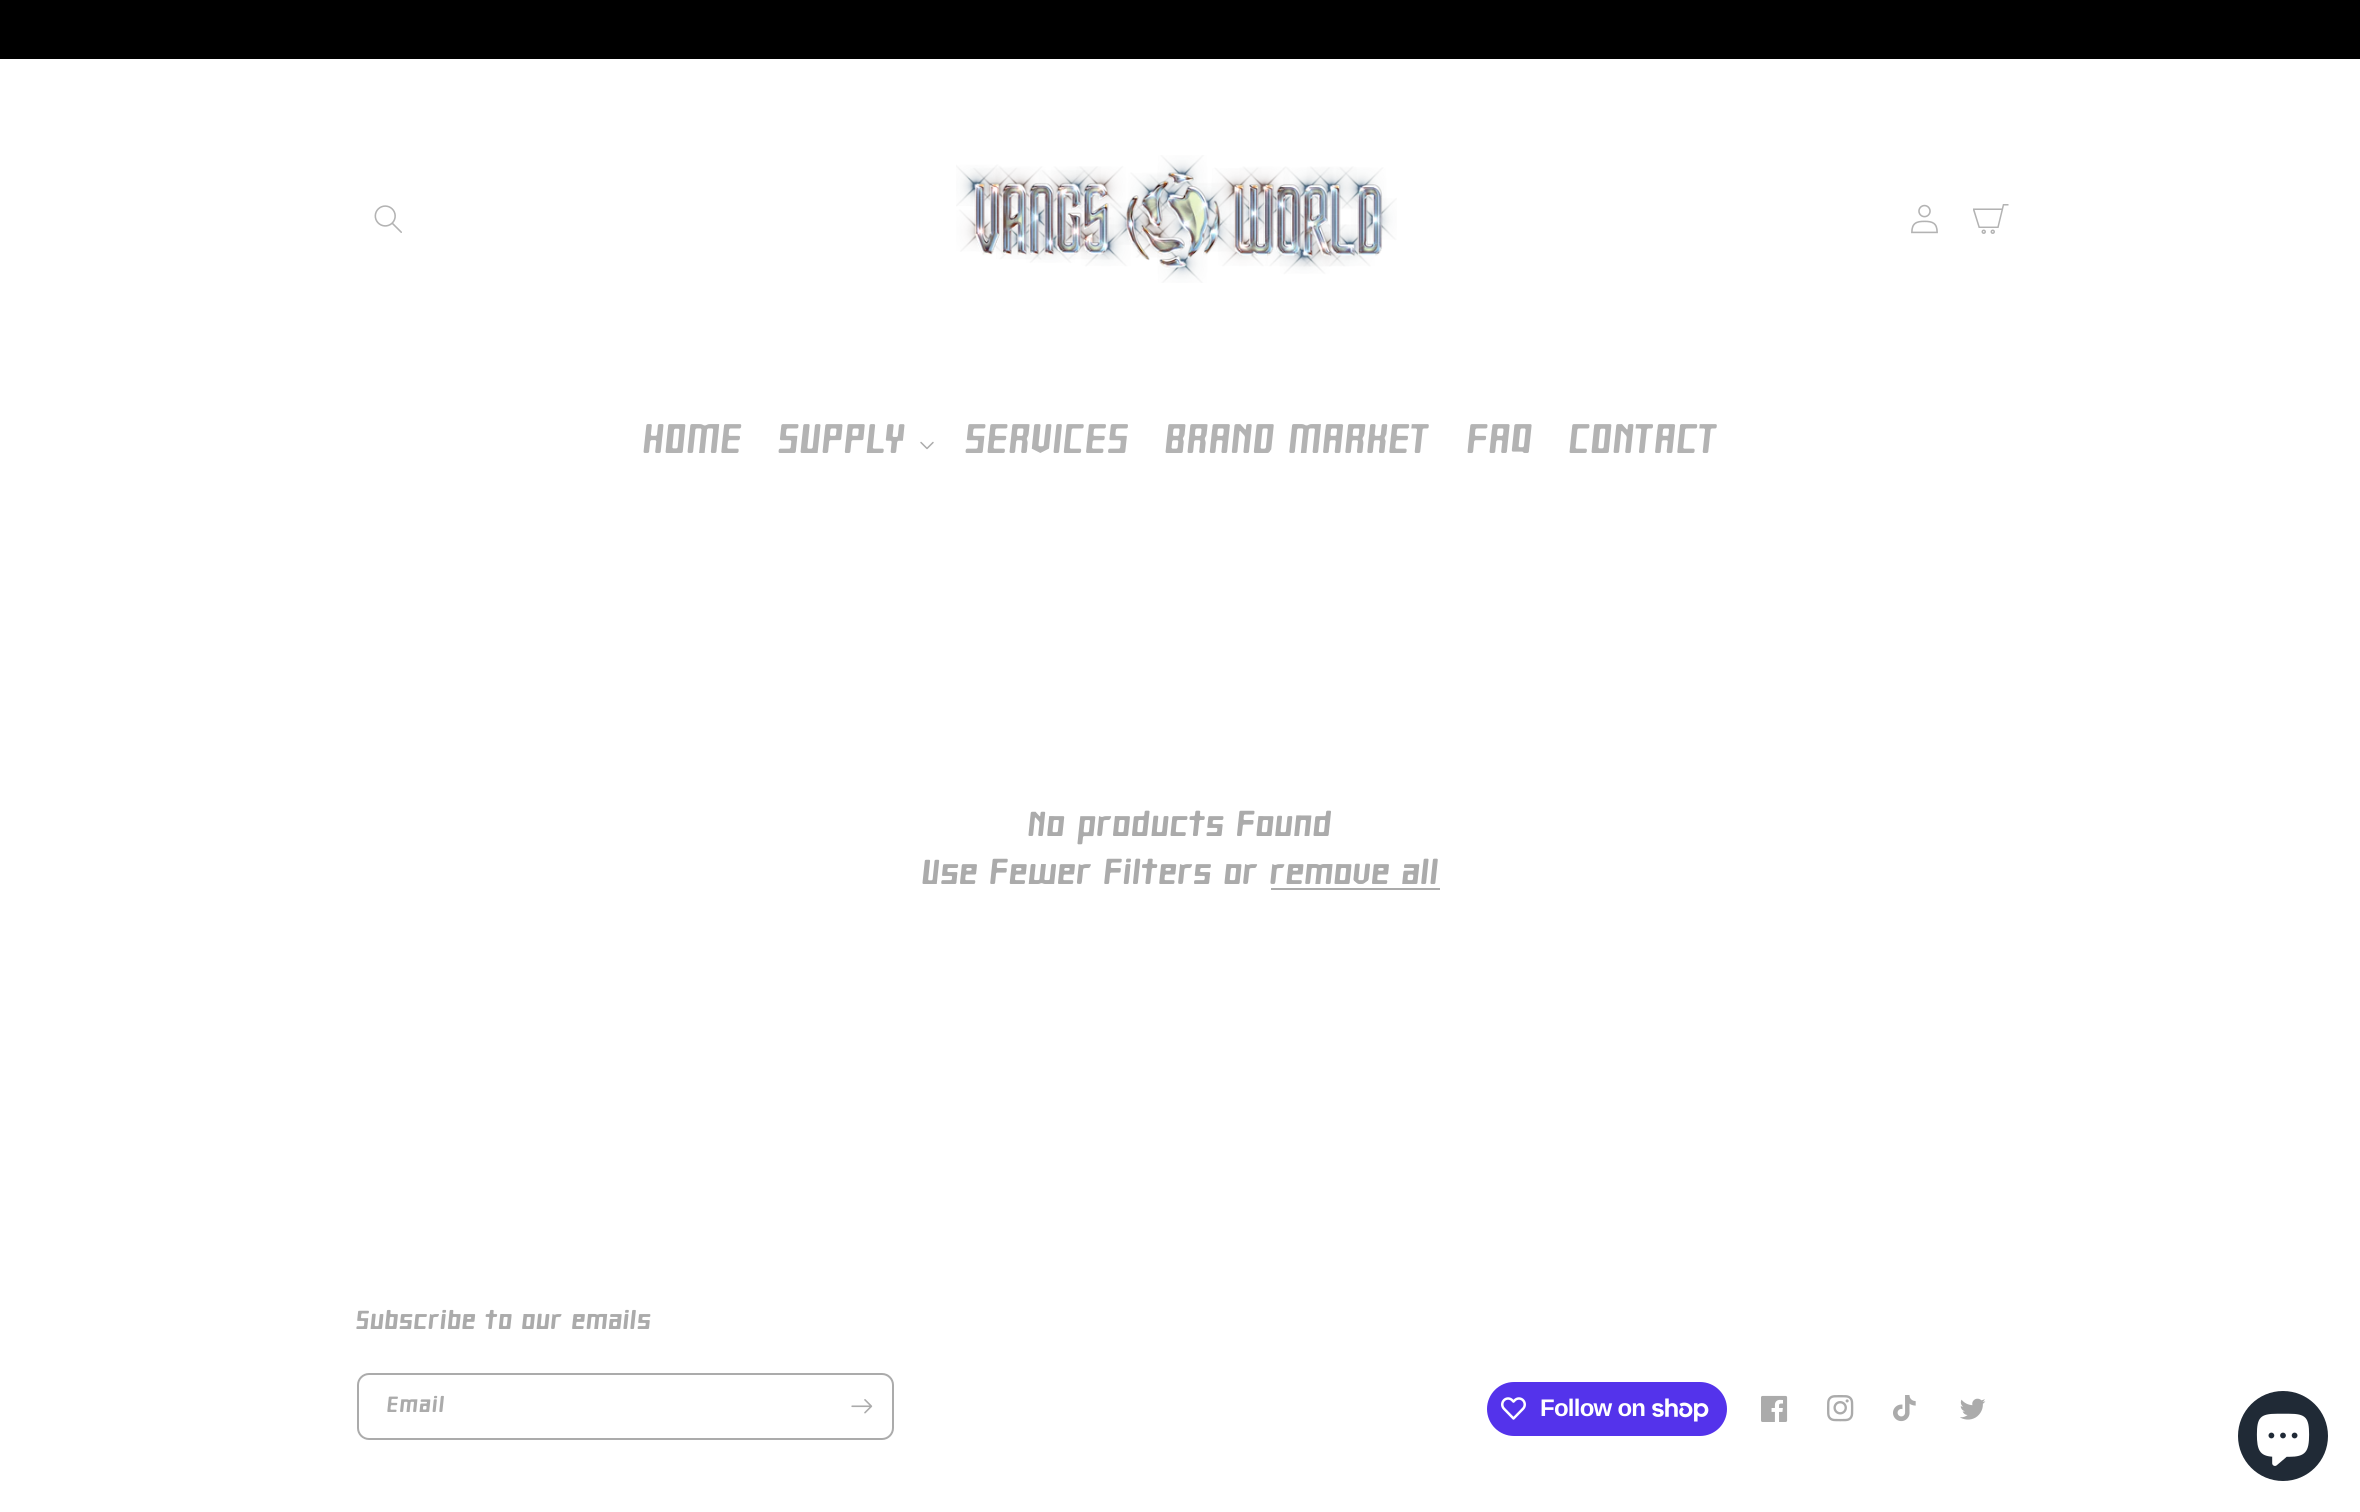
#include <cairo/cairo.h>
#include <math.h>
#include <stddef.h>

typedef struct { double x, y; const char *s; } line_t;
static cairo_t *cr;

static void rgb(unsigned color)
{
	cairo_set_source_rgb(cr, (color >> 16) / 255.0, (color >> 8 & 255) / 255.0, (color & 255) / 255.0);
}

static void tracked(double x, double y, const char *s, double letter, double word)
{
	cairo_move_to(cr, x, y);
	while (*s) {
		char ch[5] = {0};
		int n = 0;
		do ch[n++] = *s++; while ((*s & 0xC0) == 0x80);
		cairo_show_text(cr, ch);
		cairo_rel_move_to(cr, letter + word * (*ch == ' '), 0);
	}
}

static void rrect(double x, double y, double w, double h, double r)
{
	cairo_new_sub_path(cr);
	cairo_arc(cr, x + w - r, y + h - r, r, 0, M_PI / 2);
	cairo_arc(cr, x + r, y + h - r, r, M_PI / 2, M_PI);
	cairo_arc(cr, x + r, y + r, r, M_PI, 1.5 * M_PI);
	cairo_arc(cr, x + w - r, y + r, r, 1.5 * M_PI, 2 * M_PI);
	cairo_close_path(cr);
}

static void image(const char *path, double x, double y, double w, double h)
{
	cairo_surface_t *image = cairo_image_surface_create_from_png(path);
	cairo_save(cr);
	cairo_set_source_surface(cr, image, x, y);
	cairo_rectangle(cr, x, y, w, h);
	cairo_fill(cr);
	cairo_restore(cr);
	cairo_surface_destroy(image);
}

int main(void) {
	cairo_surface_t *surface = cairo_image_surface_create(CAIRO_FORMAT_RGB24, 2360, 1512);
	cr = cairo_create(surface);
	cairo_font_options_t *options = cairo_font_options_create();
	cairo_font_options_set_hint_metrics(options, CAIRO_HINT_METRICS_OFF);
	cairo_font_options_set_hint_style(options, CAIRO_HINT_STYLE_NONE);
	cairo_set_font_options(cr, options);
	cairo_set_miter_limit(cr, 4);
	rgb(0xffffff);
	cairo_paint(cr);
	rgb(0x000000);
	cairo_rectangle(cr, 0, 0, 2360, 59);
	cairo_fill(cr);
	image("img/1.png", 374, 205, 28, 28);
	image("img/2.png", 956, 155, 441, 128);
	image("img/3.png", 1911, 204, 27, 30);
	image("img/4.png", 1973, 204, 36, 30);
	image("img/5.png", 920, 441, 14, 9);
	rgb(0xababab);
	cairo_rectangle(cr, 1271, 888, 169, 2);
	cairo_fill(cr);
	rrect(358, 1374, 535, 65, 11);
	cairo_stroke(cr);
	image("img/6.png", 851, 1399, 22, 15);
	rgb(0x5433eb);
	rrect(1487, 1382, 240, 54, 27);
	cairo_fill(cr);
	image("img/7.png", 1501, 1397, 25, 23);
	image("img/8.png", 1652, 1398, 57, 24);
	image("img/9.png", 1761, 1395, 27, 27);
	image("img/10.png", 1827, 1395, 27, 27);
	image("img/11.png", 1893, 1395, 23, 27);
	image("img/12.png", 1960, 1398, 26, 22);
	rgb(0x202a36);
	cairo_arc(cr, 2283, 1436, 45, 0, 2 * M_PI);
	cairo_fill(cr);
	image("img/13.png", 2256, 1413, 54, 53);
	cairo_select_font_face(cr, "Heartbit", CAIRO_FONT_SLANT_NORMAL, CAIRO_FONT_WEIGHT_BOLD);
	cairo_set_font_size(cr, 45);
	rgb(0xb3b3b3);
	{
		static const line_t items[] = {
			{643, 453, "HOME"},
			{778, 453, "SUPPLY"},
			{965, 453, "SERVICES"},
			{1165, 453, "BRAND MARKET"},
			{1467, 453, "FAQ"},
			{1569, 453, "CONTACT"},
		};
		for (size_t i = 0; i < sizeof items / sizeof *items; i++) {
			tracked(items[i].x, items[i].y, items[i].s, 0.95, 0);
		}
	}
	cairo_set_font_size(cr, 37.75);
	rgb(0xababab);
	tracked(1028, 836, "No products found", 0.95, 0);
	tracked(922, 884, "Use fewer filters or remove all", 0.95, 0);
	cairo_set_font_size(cr, 28.4);
	tracked(356, 1329, "Subscribe to our emails", 0.95, 0);
	cairo_set_font_size(cr, 24);
	tracked(387, 1412, "Email", 1.5, 0);
	cairo_select_font_face(cr, "Liberation Sans", CAIRO_FONT_SLANT_NORMAL, CAIRO_FONT_WEIGHT_BOLD);
	rgb(0xffffff);
	tracked(1540, 1416, "Follow on", -0.75, 0);
	cairo_surface_write_to_png(surface, "page.png");
	cairo_font_options_destroy(options);
	cairo_destroy(cr);
	cairo_surface_destroy(surface);
	return 0;
}
